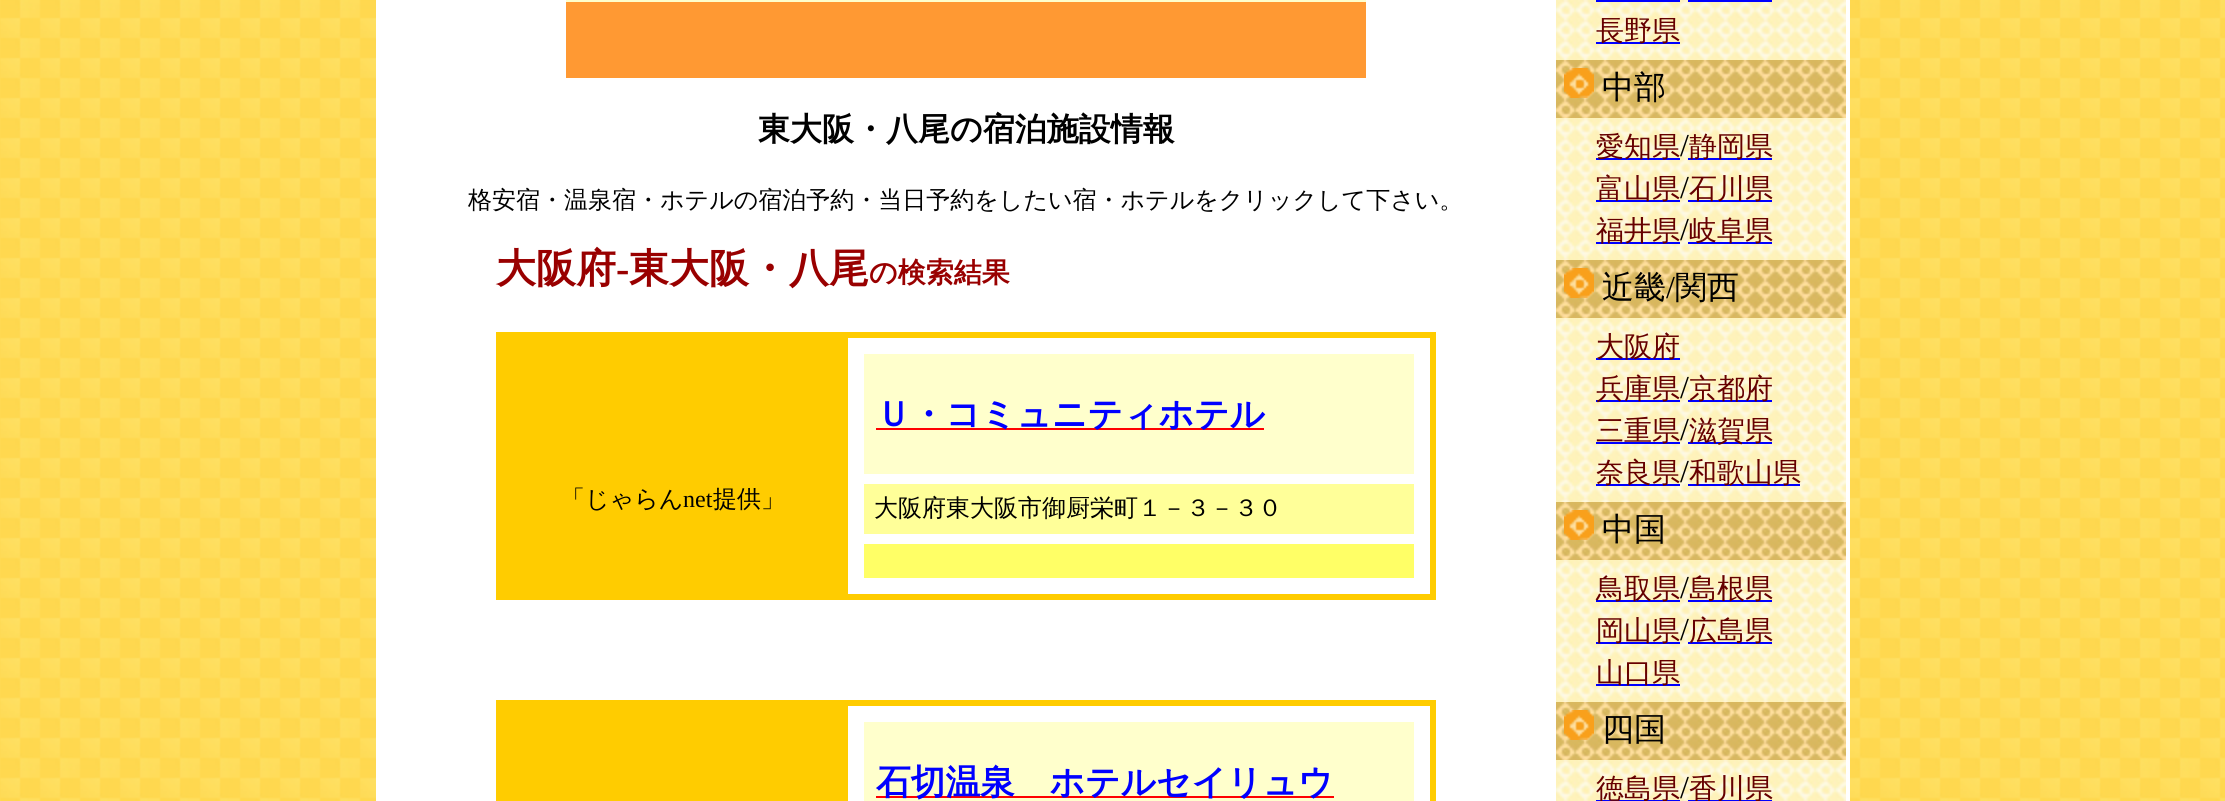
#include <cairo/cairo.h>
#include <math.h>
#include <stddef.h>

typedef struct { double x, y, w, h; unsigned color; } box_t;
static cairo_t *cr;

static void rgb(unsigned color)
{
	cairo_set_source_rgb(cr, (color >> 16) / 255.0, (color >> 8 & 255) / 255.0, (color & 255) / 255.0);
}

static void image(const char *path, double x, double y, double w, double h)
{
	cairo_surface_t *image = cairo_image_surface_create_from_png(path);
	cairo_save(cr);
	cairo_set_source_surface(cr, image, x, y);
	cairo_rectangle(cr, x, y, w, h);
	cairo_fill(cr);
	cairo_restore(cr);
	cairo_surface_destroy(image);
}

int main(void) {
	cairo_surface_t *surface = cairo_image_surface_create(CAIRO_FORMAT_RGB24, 2225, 801);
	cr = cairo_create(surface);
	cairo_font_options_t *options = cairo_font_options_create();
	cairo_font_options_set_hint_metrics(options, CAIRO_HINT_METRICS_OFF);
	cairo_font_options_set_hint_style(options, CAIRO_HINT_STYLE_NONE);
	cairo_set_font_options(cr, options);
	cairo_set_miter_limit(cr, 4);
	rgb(0xffffff);
	cairo_paint(cr);
	image("img/1.png", 0, 0, 2225, 801);
	cairo_rectangle(cr, 377, -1, 1472, 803);
	rgb(0xffffff);
	cairo_stroke(cr);
	{
		static const box_t items[] = {
			{378, 0, 1470, 801, 0xffffff},
			{566, 0, 800, 2, 0xffffcc},
			{566, 2, 800, 76, 0xff9933},
		};
		for (size_t i = 0; i < sizeof items / sizeof *items; i++) {
			rgb(items[i].color);
			cairo_rectangle(cr, items[i].x, items[i].y, items[i].w, items[i].h);
			cairo_fill(cr);
		}
	}
	cairo_rectangle(cr, 498, 334, 936, 264);
	rgb(0xffcc00);
	cairo_set_line_width(cr, 4);
	cairo_stroke(cr);
	cairo_rectangle(cr, 500, 336, 346, 260);
	cairo_fill(cr);
	cairo_rectangle(cr, 847, 337, 584, 258);
	cairo_set_line_width(cr, 2);
	cairo_stroke(cr);
	{
		static const box_t items[] = {
			{864, 354, 550, 120, 0xffffcc},
			{876, 428, 388, 2, 0xff0000},
			{864, 484, 550, 50, 0xffff99},
			{864, 544, 550, 34, 0xffff66},
		};
		for (size_t i = 0; i < sizeof items / sizeof *items; i++) {
			rgb(items[i].color);
			cairo_rectangle(cr, items[i].x, items[i].y, items[i].w, items[i].h);
			cairo_fill(cr);
		}
	}
	cairo_rectangle(cr, 498, 702, 936, 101);
	rgb(0xffcc00);
	cairo_set_line_width(cr, 4);
	cairo_stroke(cr);
	cairo_rectangle(cr, 500, 704, 346, 97);
	cairo_fill(cr);
	cairo_rectangle(cr, 847, 705, 584, 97);
	cairo_set_line_width(cr, 2);
	cairo_stroke(cr);
	rgb(0xffffcc);
	cairo_rectangle(cr, 864, 722, 550, 79);
	cairo_fill(cr);
	rgb(0xff0000);
	cairo_rectangle(cr, 876, 796, 458, 2);
	cairo_fill(cr);
	image("img/2.png", 1556, 0, 290, 60);
	{
		static const box_t items[] = {
			{1596, 0, 84, 2, 0x0000ff},
			{1688, 0, 84, 2, 0x0000ff},
			{1596, 42, 84, 2, 0x0000ff},
		};
		for (size_t i = 0; i < sizeof items / sizeof *items; i++) {
			rgb(items[i].color);
			cairo_rectangle(cr, items[i].x, items[i].y, items[i].w, items[i].h);
			cairo_fill(cr);
		}
	}
	image("img/3.png", 1556, 60, 290, 58);
	image("img/4.png", 1564, 68, 30, 30);
	image("img/5.png", 1556, 118, 290, 142);
	{
		static const box_t items[] = {
			{1596, 158, 84, 2, 0x0000ff},
			{1688, 158, 84, 2, 0x0000ff},
			{1596, 200, 84, 2, 0x0000ff},
			{1688, 200, 84, 2, 0x0000ff},
			{1596, 242, 84, 2, 0x0000ff},
			{1688, 242, 84, 2, 0x0000ff},
		};
		for (size_t i = 0; i < sizeof items / sizeof *items; i++) {
			rgb(items[i].color);
			cairo_rectangle(cr, items[i].x, items[i].y, items[i].w, items[i].h);
			cairo_fill(cr);
		}
	}
	image("img/3.png", 1556, 260, 290, 58);
	image("img/4.png", 1564, 268, 30, 30);
	image("img/6.png", 1556, 318, 290, 184);
	{
		static const box_t items[] = {
			{1596, 358, 84, 2, 0x0000ff},
			{1596, 400, 84, 2, 0x0000ff},
			{1688, 400, 84, 2, 0x0000ff},
			{1596, 442, 84, 2, 0x0000ff},
			{1688, 442, 84, 2, 0x0000ff},
			{1596, 484, 84, 2, 0x0000ff},
			{1688, 484, 112, 2, 0x0000ff},
		};
		for (size_t i = 0; i < sizeof items / sizeof *items; i++) {
			rgb(items[i].color);
			cairo_rectangle(cr, items[i].x, items[i].y, items[i].w, items[i].h);
			cairo_fill(cr);
		}
	}
	image("img/3.png", 1556, 502, 290, 58);
	image("img/4.png", 1564, 510, 30, 30);
	image("img/5.png", 1556, 560, 290, 142);
	{
		static const box_t items[] = {
			{1596, 600, 84, 2, 0x0000ff},
			{1688, 600, 84, 2, 0x0000ff},
			{1596, 642, 84, 2, 0x0000ff},
			{1688, 642, 84, 2, 0x0000ff},
			{1596, 684, 84, 2, 0x0000ff},
		};
		for (size_t i = 0; i < sizeof items / sizeof *items; i++) {
			rgb(items[i].color);
			cairo_rectangle(cr, items[i].x, items[i].y, items[i].w, items[i].h);
			cairo_fill(cr);
		}
	}
	image("img/3.png", 1556, 702, 290, 58);
	image("img/4.png", 1564, 710, 30, 30);
	image("img/7.png", 1556, 760, 290, 41);
	cairo_rectangle(cr, 1596, 800, 84, 1);
	cairo_fill(cr);
	cairo_rectangle(cr, 1688, 800, 84, 1);
	cairo_fill(cr);
	cairo_select_font_face(cr, "WenQuanYi Zen Hei", CAIRO_FONT_SLANT_NORMAL, CAIRO_FONT_WEIGHT_BOLD);
	cairo_set_font_size(cr, 32);
	rgb(0x000000);
	cairo_move_to(cr, 758, 140);
	cairo_show_text(cr, "東大阪・八尾の宿泊施設情報");
	cairo_select_font_face(cr, "WenQuanYi Zen Hei Medium", CAIRO_FONT_SLANT_NORMAL, CAIRO_FONT_WEIGHT_NORMAL);
	cairo_set_font_size(cr, 24);
	cairo_move_to(cr, 468, 208);
	cairo_show_text(cr, "格安宿・温泉宿・ホテルの宿泊予約・当日予約をしたい宿・ホテルをクリックして下さい。");
	cairo_select_font_face(cr, "WenQuanYi Zen Hei", CAIRO_FONT_SLANT_NORMAL, CAIRO_FONT_WEIGHT_BOLD);
	cairo_set_font_size(cr, 40);
	rgb(0x990000);
	cairo_move_to(cr, 496, 282);
	cairo_show_text(cr, "大阪府");
	cairo_select_font_face(cr, "Liberation Serif", CAIRO_FONT_SLANT_NORMAL, CAIRO_FONT_WEIGHT_BOLD);
	cairo_move_to(cr, 616, 282);
	cairo_show_text(cr, "-");
	cairo_select_font_face(cr, "WenQuanYi Zen Hei", CAIRO_FONT_SLANT_NORMAL, CAIRO_FONT_WEIGHT_BOLD);
	cairo_move_to(cr, 629, 282);
	cairo_show_text(cr, "東大阪・八尾");
	cairo_set_font_size(cr, 28);
	cairo_move_to(cr, 869, 282);
	cairo_show_text(cr, "の検索結果");
	cairo_select_font_face(cr, "WenQuanYi Zen Hei Medium", CAIRO_FONT_SLANT_NORMAL, CAIRO_FONT_WEIGHT_NORMAL);
	cairo_set_font_size(cr, 24);
	rgb(0x000000);
	cairo_move_to(cr, 561, 507);
	cairo_show_text(cr, "「じゃらん");
	cairo_select_font_face(cr, "Liberation Serif", CAIRO_FONT_SLANT_NORMAL, CAIRO_FONT_WEIGHT_NORMAL);
	cairo_move_to(cr, 683, 507);
	cairo_show_text(cr, "net");
	cairo_select_font_face(cr, "WenQuanYi Zen Hei Medium", CAIRO_FONT_SLANT_NORMAL, CAIRO_FONT_WEIGHT_NORMAL);
	cairo_move_to(cr, 713, 507);
	cairo_show_text(cr, "提供」");
	cairo_select_font_face(cr, "WenQuanYi Zen Hei", CAIRO_FONT_SLANT_NORMAL, CAIRO_FONT_WEIGHT_BOLD);
	cairo_set_font_size(cr, 34.7);
	rgb(0x0000ff);
	cairo_move_to(cr, 876, 426);
	cairo_show_text(cr, "Ｕ・コミュニティホテル");
	cairo_select_font_face(cr, "WenQuanYi Zen Hei Medium", CAIRO_FONT_SLANT_NORMAL, CAIRO_FONT_WEIGHT_NORMAL);
	cairo_set_font_size(cr, 24);
	rgb(0x000000);
	cairo_move_to(cr, 874, 516);
	cairo_show_text(cr, "大阪府東大阪市御厨栄町１－３－３０");
	cairo_select_font_face(cr, "WenQuanYi Zen Hei", CAIRO_FONT_SLANT_NORMAL, CAIRO_FONT_WEIGHT_BOLD);
	cairo_set_font_size(cr, 34.7);
	rgb(0x0000ff);
	cairo_move_to(cr, 876, 794);
	cairo_show_text(cr, "石切温泉　ホテルセイリュウ");
	cairo_select_font_face(cr, "WenQuanYi Zen Hei Medium", CAIRO_FONT_SLANT_NORMAL, CAIRO_FONT_WEIGHT_NORMAL);
	cairo_set_font_size(cr, 28);
	rgb(0x660000);
	cairo_move_to(cr, 1596, 40);
	cairo_show_text(cr, "長野県");
	cairo_set_font_size(cr, 32);
	rgb(0x000000);
	cairo_move_to(cr, 1602, 98);
	cairo_show_text(cr, "中部");
	cairo_set_font_size(cr, 28);
	rgb(0x660000);
	cairo_move_to(cr, 1596, 156);
	cairo_show_text(cr, "愛知県");
	cairo_select_font_face(cr, "Liberation Serif", CAIRO_FONT_SLANT_NORMAL, CAIRO_FONT_WEIGHT_NORMAL);
	cairo_set_font_size(cr, 32);
	rgb(0x000000);
	cairo_move_to(cr, 1680, 156);
	cairo_show_text(cr, "/");
	cairo_select_font_face(cr, "WenQuanYi Zen Hei Medium", CAIRO_FONT_SLANT_NORMAL, CAIRO_FONT_WEIGHT_NORMAL);
	cairo_set_font_size(cr, 28);
	rgb(0x660000);
	cairo_move_to(cr, 1689, 156);
	cairo_show_text(cr, "静岡県");
	cairo_move_to(cr, 1596, 198);
	cairo_show_text(cr, "富山県");
	cairo_select_font_face(cr, "Liberation Serif", CAIRO_FONT_SLANT_NORMAL, CAIRO_FONT_WEIGHT_NORMAL);
	cairo_set_font_size(cr, 32);
	rgb(0x000000);
	cairo_move_to(cr, 1680, 198);
	cairo_show_text(cr, "/");
	cairo_select_font_face(cr, "WenQuanYi Zen Hei Medium", CAIRO_FONT_SLANT_NORMAL, CAIRO_FONT_WEIGHT_NORMAL);
	cairo_set_font_size(cr, 28);
	rgb(0x660000);
	cairo_move_to(cr, 1689, 198);
	cairo_show_text(cr, "石川県");
	cairo_move_to(cr, 1596, 240);
	cairo_show_text(cr, "福井県");
	cairo_select_font_face(cr, "Liberation Serif", CAIRO_FONT_SLANT_NORMAL, CAIRO_FONT_WEIGHT_NORMAL);
	cairo_set_font_size(cr, 32);
	rgb(0x000000);
	cairo_move_to(cr, 1680, 240);
	cairo_show_text(cr, "/");
	cairo_select_font_face(cr, "WenQuanYi Zen Hei Medium", CAIRO_FONT_SLANT_NORMAL, CAIRO_FONT_WEIGHT_NORMAL);
	cairo_set_font_size(cr, 28);
	rgb(0x660000);
	cairo_move_to(cr, 1689, 240);
	cairo_show_text(cr, "岐阜県");
	cairo_set_font_size(cr, 32);
	rgb(0x000000);
	cairo_move_to(cr, 1602, 298);
	cairo_show_text(cr, "近畿");
	cairo_select_font_face(cr, "Liberation Serif", CAIRO_FONT_SLANT_NORMAL, CAIRO_FONT_WEIGHT_NORMAL);
	cairo_move_to(cr, 1666, 298);
	cairo_show_text(cr, "/");
	cairo_select_font_face(cr, "WenQuanYi Zen Hei Medium", CAIRO_FONT_SLANT_NORMAL, CAIRO_FONT_WEIGHT_NORMAL);
	cairo_move_to(cr, 1675, 298);
	cairo_show_text(cr, "関西");
	cairo_set_font_size(cr, 28);
	rgb(0x660000);
	cairo_move_to(cr, 1596, 356);
	cairo_show_text(cr, "大阪府");
	cairo_move_to(cr, 1596, 398);
	cairo_show_text(cr, "兵庫県");
	cairo_select_font_face(cr, "Liberation Serif", CAIRO_FONT_SLANT_NORMAL, CAIRO_FONT_WEIGHT_NORMAL);
	cairo_set_font_size(cr, 32);
	rgb(0x000000);
	cairo_move_to(cr, 1680, 398);
	cairo_show_text(cr, "/");
	cairo_select_font_face(cr, "WenQuanYi Zen Hei Medium", CAIRO_FONT_SLANT_NORMAL, CAIRO_FONT_WEIGHT_NORMAL);
	cairo_set_font_size(cr, 28);
	rgb(0x660000);
	cairo_move_to(cr, 1689, 398);
	cairo_show_text(cr, "京都府");
	cairo_move_to(cr, 1596, 440);
	cairo_show_text(cr, "三重県");
	cairo_select_font_face(cr, "Liberation Serif", CAIRO_FONT_SLANT_NORMAL, CAIRO_FONT_WEIGHT_NORMAL);
	cairo_set_font_size(cr, 32);
	rgb(0x000000);
	cairo_move_to(cr, 1680, 440);
	cairo_show_text(cr, "/");
	cairo_select_font_face(cr, "WenQuanYi Zen Hei Medium", CAIRO_FONT_SLANT_NORMAL, CAIRO_FONT_WEIGHT_NORMAL);
	cairo_set_font_size(cr, 28);
	rgb(0x660000);
	cairo_move_to(cr, 1689, 440);
	cairo_show_text(cr, "滋賀県");
	cairo_move_to(cr, 1596, 482);
	cairo_show_text(cr, "奈良県");
	cairo_select_font_face(cr, "Liberation Serif", CAIRO_FONT_SLANT_NORMAL, CAIRO_FONT_WEIGHT_NORMAL);
	cairo_set_font_size(cr, 32);
	rgb(0x000000);
	cairo_move_to(cr, 1680, 482);
	cairo_show_text(cr, "/");
	cairo_select_font_face(cr, "WenQuanYi Zen Hei Medium", CAIRO_FONT_SLANT_NORMAL, CAIRO_FONT_WEIGHT_NORMAL);
	cairo_set_font_size(cr, 28);
	rgb(0x660000);
	cairo_move_to(cr, 1689, 482);
	cairo_show_text(cr, "和歌山県");
	cairo_set_font_size(cr, 32);
	rgb(0x000000);
	cairo_move_to(cr, 1602, 540);
	cairo_show_text(cr, "中国");
	cairo_set_font_size(cr, 28);
	rgb(0x660000);
	cairo_move_to(cr, 1596, 598);
	cairo_show_text(cr, "鳥取県");
	cairo_select_font_face(cr, "Liberation Serif", CAIRO_FONT_SLANT_NORMAL, CAIRO_FONT_WEIGHT_NORMAL);
	cairo_set_font_size(cr, 32);
	rgb(0x000000);
	cairo_move_to(cr, 1680, 598);
	cairo_show_text(cr, "/");
	cairo_select_font_face(cr, "WenQuanYi Zen Hei Medium", CAIRO_FONT_SLANT_NORMAL, CAIRO_FONT_WEIGHT_NORMAL);
	cairo_set_font_size(cr, 28);
	rgb(0x660000);
	cairo_move_to(cr, 1689, 598);
	cairo_show_text(cr, "島根県");
	cairo_move_to(cr, 1596, 640);
	cairo_show_text(cr, "岡山県");
	cairo_select_font_face(cr, "Liberation Serif", CAIRO_FONT_SLANT_NORMAL, CAIRO_FONT_WEIGHT_NORMAL);
	cairo_set_font_size(cr, 32);
	rgb(0x000000);
	cairo_move_to(cr, 1680, 640);
	cairo_show_text(cr, "/");
	cairo_select_font_face(cr, "WenQuanYi Zen Hei Medium", CAIRO_FONT_SLANT_NORMAL, CAIRO_FONT_WEIGHT_NORMAL);
	cairo_set_font_size(cr, 28);
	rgb(0x660000);
	cairo_move_to(cr, 1689, 640);
	cairo_show_text(cr, "広島県");
	cairo_move_to(cr, 1596, 682);
	cairo_show_text(cr, "山口県");
	cairo_set_font_size(cr, 32);
	rgb(0x000000);
	cairo_move_to(cr, 1602, 740);
	cairo_show_text(cr, "四国");
	cairo_set_font_size(cr, 28);
	rgb(0x660000);
	cairo_move_to(cr, 1596, 798);
	cairo_show_text(cr, "徳島県");
	cairo_select_font_face(cr, "Liberation Serif", CAIRO_FONT_SLANT_NORMAL, CAIRO_FONT_WEIGHT_NORMAL);
	cairo_set_font_size(cr, 32);
	rgb(0x000000);
	cairo_move_to(cr, 1680, 798);
	cairo_show_text(cr, "/");
	cairo_select_font_face(cr, "WenQuanYi Zen Hei Medium", CAIRO_FONT_SLANT_NORMAL, CAIRO_FONT_WEIGHT_NORMAL);
	cairo_set_font_size(cr, 28);
	rgb(0x660000);
	cairo_move_to(cr, 1689, 798);
	cairo_show_text(cr, "香川県");
	cairo_surface_write_to_png(surface, "page.png");
	cairo_font_options_destroy(options);
	cairo_destroy(cr);
	cairo_surface_destroy(surface);
	return 0;
}
